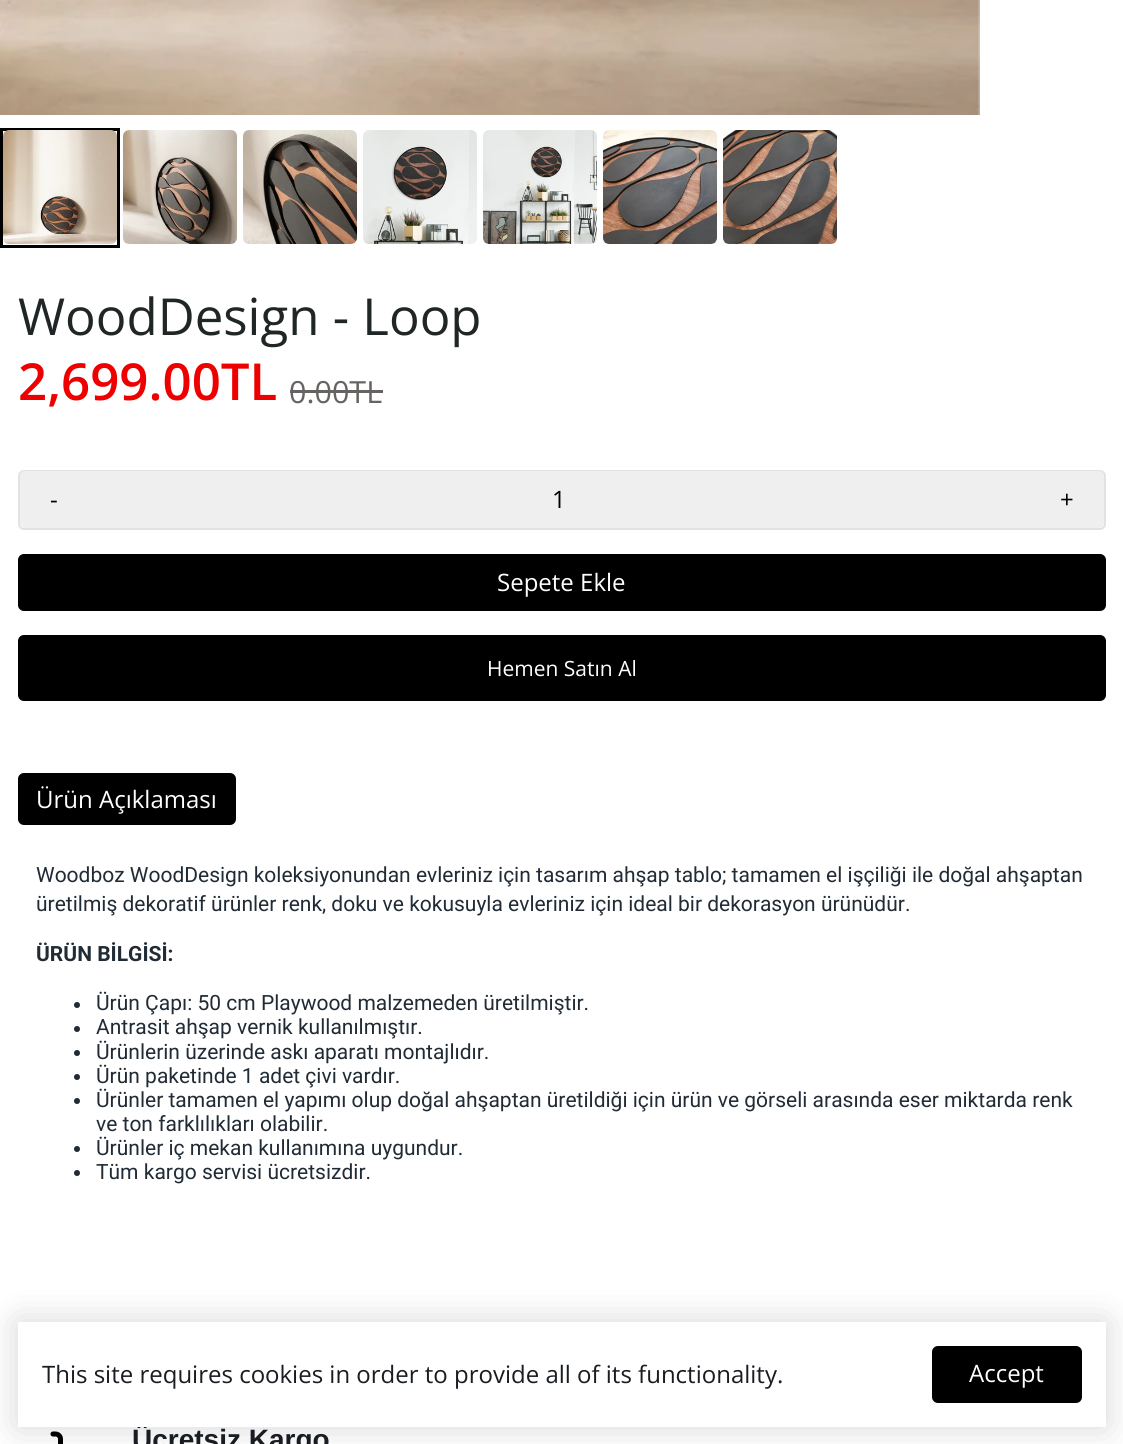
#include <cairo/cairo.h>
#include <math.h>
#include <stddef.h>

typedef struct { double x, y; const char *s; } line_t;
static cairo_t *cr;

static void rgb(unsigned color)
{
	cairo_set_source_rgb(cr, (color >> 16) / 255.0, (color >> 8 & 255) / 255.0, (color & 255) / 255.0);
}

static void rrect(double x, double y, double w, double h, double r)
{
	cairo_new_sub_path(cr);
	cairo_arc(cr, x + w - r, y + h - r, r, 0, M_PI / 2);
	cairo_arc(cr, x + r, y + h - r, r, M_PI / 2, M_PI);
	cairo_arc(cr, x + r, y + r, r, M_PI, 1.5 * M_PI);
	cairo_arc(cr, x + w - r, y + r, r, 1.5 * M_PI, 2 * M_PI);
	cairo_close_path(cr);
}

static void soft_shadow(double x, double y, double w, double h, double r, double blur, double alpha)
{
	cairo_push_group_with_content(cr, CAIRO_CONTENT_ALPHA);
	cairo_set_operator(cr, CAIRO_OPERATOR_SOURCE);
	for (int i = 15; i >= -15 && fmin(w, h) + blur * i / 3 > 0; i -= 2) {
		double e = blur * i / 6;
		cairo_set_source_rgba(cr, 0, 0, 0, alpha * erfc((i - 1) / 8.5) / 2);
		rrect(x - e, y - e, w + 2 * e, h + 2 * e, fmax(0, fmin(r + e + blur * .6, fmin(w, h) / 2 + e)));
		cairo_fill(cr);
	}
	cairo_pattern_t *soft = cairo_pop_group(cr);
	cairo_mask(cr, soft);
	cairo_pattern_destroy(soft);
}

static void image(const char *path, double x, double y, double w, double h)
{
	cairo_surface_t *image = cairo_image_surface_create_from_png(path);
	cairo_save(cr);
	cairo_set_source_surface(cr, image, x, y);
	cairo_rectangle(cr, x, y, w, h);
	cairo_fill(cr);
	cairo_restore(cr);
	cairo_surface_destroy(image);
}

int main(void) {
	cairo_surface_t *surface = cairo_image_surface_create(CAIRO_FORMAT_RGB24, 1123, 1444);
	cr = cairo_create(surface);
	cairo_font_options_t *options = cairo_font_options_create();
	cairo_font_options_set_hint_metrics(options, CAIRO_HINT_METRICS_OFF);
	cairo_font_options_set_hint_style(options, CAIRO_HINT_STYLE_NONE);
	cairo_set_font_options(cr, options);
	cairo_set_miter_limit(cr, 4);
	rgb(0xffffff);
	cairo_paint(cr);
	image("img/1.png", 0, 0, 980, 115);
	cairo_rectangle(cr, 1.5, 129.5, 117, 117);
	rgb(0x000000);
	cairo_set_line_width(cr, 3);
	cairo_stroke(cr);
	image("img/2.png", 3, 130, 114, 114);
	image("img/3.png", 123, 130, 114, 114);
	image("img/4.png", 243, 130, 114, 114);
	image("img/5.png", 363, 130, 114, 114);
	image("img/6.png", 483, 130, 114, 114);
	image("img/7.png", 603, 130, 114, 114);
	image("img/8.png", 723, 130, 114, 114);
	rgb(0x686363);
	cairo_rectangle(cr, 290, 390, 93, 3);
	cairo_fill(cr);
	rrect(19, 471, 1086, 58, 5);
	rgb(0xe2e2e2);
	cairo_set_line_width(cr, 2);
	cairo_stroke(cr);
	rgb(0xefefef);
	cairo_new_path(cr);
	cairo_move_to(cr, 25, 471);
	cairo_line_to(cr, 87, 471);
	cairo_line_to(cr, 87, 528);
	cairo_line_to(cr, 25, 528);
	cairo_curve_to(cr, 22, 528, 20, 526, 20, 523);
	cairo_line_to(cr, 20, 476);
	cairo_curve_to(cr, 20, 473, 22, 471, 25, 471);
	cairo_close_path(cr);
	cairo_fill(cr);
	cairo_rectangle(cr, 87, 471, 944, 57);
	cairo_fill(cr);
	cairo_new_path(cr);
	cairo_move_to(cr, 1031, 471);
	cairo_line_to(cr, 1099, 471);
	cairo_curve_to(cr, 1102, 471, 1104, 473, 1104, 476);
	cairo_line_to(cr, 1104, 523);
	cairo_curve_to(cr, 1104, 526, 1102, 528, 1099, 528);
	cairo_line_to(cr, 1031, 528);
	cairo_close_path(cr);
	cairo_fill(cr);
	rgb(0x000000);
	rrect(18, 554, 1088, 57, 6);
	cairo_fill(cr);
	rrect(18, 635, 1088, 66, 6);
	cairo_fill(cr);
	rrect(18, 773, 218, 52, 6);
	cairo_fill(cr);
	rgb(0x212b36);
	cairo_arc(cr, 77, 1005, 3, 0, 2 * M_PI);
	cairo_fill(cr);
	cairo_arc(cr, 77, 1029, 3, 0, 2 * M_PI);
	cairo_fill(cr);
	cairo_arc(cr, 77, 1053, 3, 0, 2 * M_PI);
	cairo_fill(cr);
	cairo_arc(cr, 77, 1077, 3, 0, 2 * M_PI);
	cairo_fill(cr);
	cairo_arc(cr, 77, 1101, 3, 0, 2 * M_PI);
	cairo_fill(cr);
	cairo_arc(cr, 77, 1149, 3, 0, 2 * M_PI);
	cairo_fill(cr);
	cairo_arc(cr, 77, 1173, 3, 0, 2 * M_PI);
	cairo_fill(cr);
	image("img/9.png", 50, 1431, 13, 13);
	rgb(0x000000);
	soft_shadow(18, 1322, 1088, 105, 0, 18, 0.16);
	cairo_select_font_face(cr, "Open Sans", CAIRO_FONT_SLANT_NORMAL, CAIRO_FONT_WEIGHT_NORMAL);
	cairo_set_font_size(cr, 51);
	rgb(0x202626);
	cairo_move_to(cr, 18, 335);
	cairo_show_text(cr, "WoodDesign - Loop");
	cairo_select_font_face(cr, "Open Sans SemiBold", CAIRO_FONT_SLANT_NORMAL, CAIRO_FONT_WEIGHT_NORMAL);
	rgb(0xef0000);
	cairo_move_to(cr, 18, 400);
	cairo_show_text(cr, "2,699.00TL");
	cairo_select_font_face(cr, "Open Sans", CAIRO_FONT_SLANT_NORMAL, CAIRO_FONT_WEIGHT_NORMAL);
	cairo_set_font_size(cr, 30.5);
	rgb(0x686363);
	cairo_move_to(cr, 289, 403);
	cairo_show_text(cr, "0.00TL");
	cairo_set_font_size(cr, 24);
	rgb(0x000000);
	{
		static const line_t items[] = {
			{50, 508, "-"},
			{552, 508, "1"},
			{1060, 508, "+"},
		};
		for (size_t i = 0; i < sizeof items / sizeof *items; i++) {
			cairo_move_to(cr, items[i].x, items[i].y);
			cairo_show_text(cr, items[i].s);
		}
	}
	rgb(0xffffff);
	cairo_move_to(cr, 497, 591);
	cairo_show_text(cr, "Sepete Ekle");
	cairo_set_font_size(cr, 21);
	cairo_move_to(cr, 487, 676);
	cairo_show_text(cr, "Hemen Satın Al");
	cairo_set_font_size(cr, 24);
	cairo_move_to(cr, 36, 808);
	cairo_show_text(cr, "Ürün Açıklaması");
	cairo_select_font_face(cr, "Roboto", CAIRO_FONT_SLANT_NORMAL, CAIRO_FONT_WEIGHT_NORMAL);
	cairo_set_font_size(cr, 21);
	rgb(0x212b36);
	cairo_move_to(cr, 36, 882);
	cairo_show_text(cr, "Woodboz WoodDesign koleksiyonundan evleriniz için tasarım ahşap tablo; tamamen el işçiliği ile doğal ahşaptan");
	cairo_move_to(cr, 36, 911);
	cairo_show_text(cr, "üretilmiş dekoratif ürünler renk, doku ve kokusuyla evleriniz için ideal bir dekorasyon ürünüdür.");
	cairo_select_font_face(cr, "Roboto", CAIRO_FONT_SLANT_NORMAL, CAIRO_FONT_WEIGHT_BOLD);
	cairo_move_to(cr, 36, 961);
	cairo_show_text(cr, "ÜRÜN BİLGİSİ:");
	cairo_select_font_face(cr, "Roboto", CAIRO_FONT_SLANT_NORMAL, CAIRO_FONT_WEIGHT_NORMAL);
	{
		static const line_t items[] = {
			{96, 1010, "Ürün Çapı: 50 cm Playwood malzemeden üretilmiştir."},
			{96, 1034, "Antrasit ahşap vernik kullanılmıştır."},
			{96, 1059, "Ürünlerin üzerinde askı aparatı montajlıdır."},
			{96, 1083, "Ürün paketinde 1 adet çivi vardır."},
			{96, 1107, "Ürünler tamamen el yapımı olup doğal ahşaptan üretildiği için ürün ve görseli arasında eser miktarda renk"},
			{96, 1131, "ve ton farklılıkları olabilir."},
			{96, 1155, "Ürünler iç mekan kullanımına uygundur."},
			{96, 1179, "Tüm kargo servisi ücretsizdir."},
		};
		for (size_t i = 0; i < sizeof items / sizeof *items; i++) {
			cairo_move_to(cr, items[i].x, items[i].y);
			cairo_show_text(cr, items[i].s);
		}
	}
	cairo_select_font_face(cr, "Arimo", CAIRO_FONT_SLANT_NORMAL, CAIRO_FONT_WEIGHT_BOLD);
	cairo_set_font_size(cr, 28);
	rgb(0x191d21);
	cairo_move_to(cr, 132, 1449);
	cairo_show_text(cr, "Ücretsiz Kargo");
	rgb(0xffffff);
	cairo_rectangle(cr, 18, 1322, 1088, 105);
	cairo_fill(cr);
	cairo_select_font_face(cr, "Open Sans", CAIRO_FONT_SLANT_NORMAL, CAIRO_FONT_WEIGHT_NORMAL);
	cairo_set_font_size(cr, 24);
	rgb(0x191d21);
	cairo_move_to(cr, 42, 1383);
	cairo_show_text(cr, "This site requires cookies in order to provide all of its functionality.");
	rgb(0x000000);
	rrect(932, 1346, 150, 57, 6);
	cairo_fill(cr);
	rgb(0xffffff);
	cairo_move_to(cr, 969, 1382);
	cairo_show_text(cr, "Accept");
	cairo_surface_write_to_png(surface, "page.png");
	cairo_font_options_destroy(options);
	cairo_destroy(cr);
	cairo_surface_destroy(surface);
	return 0;
}
